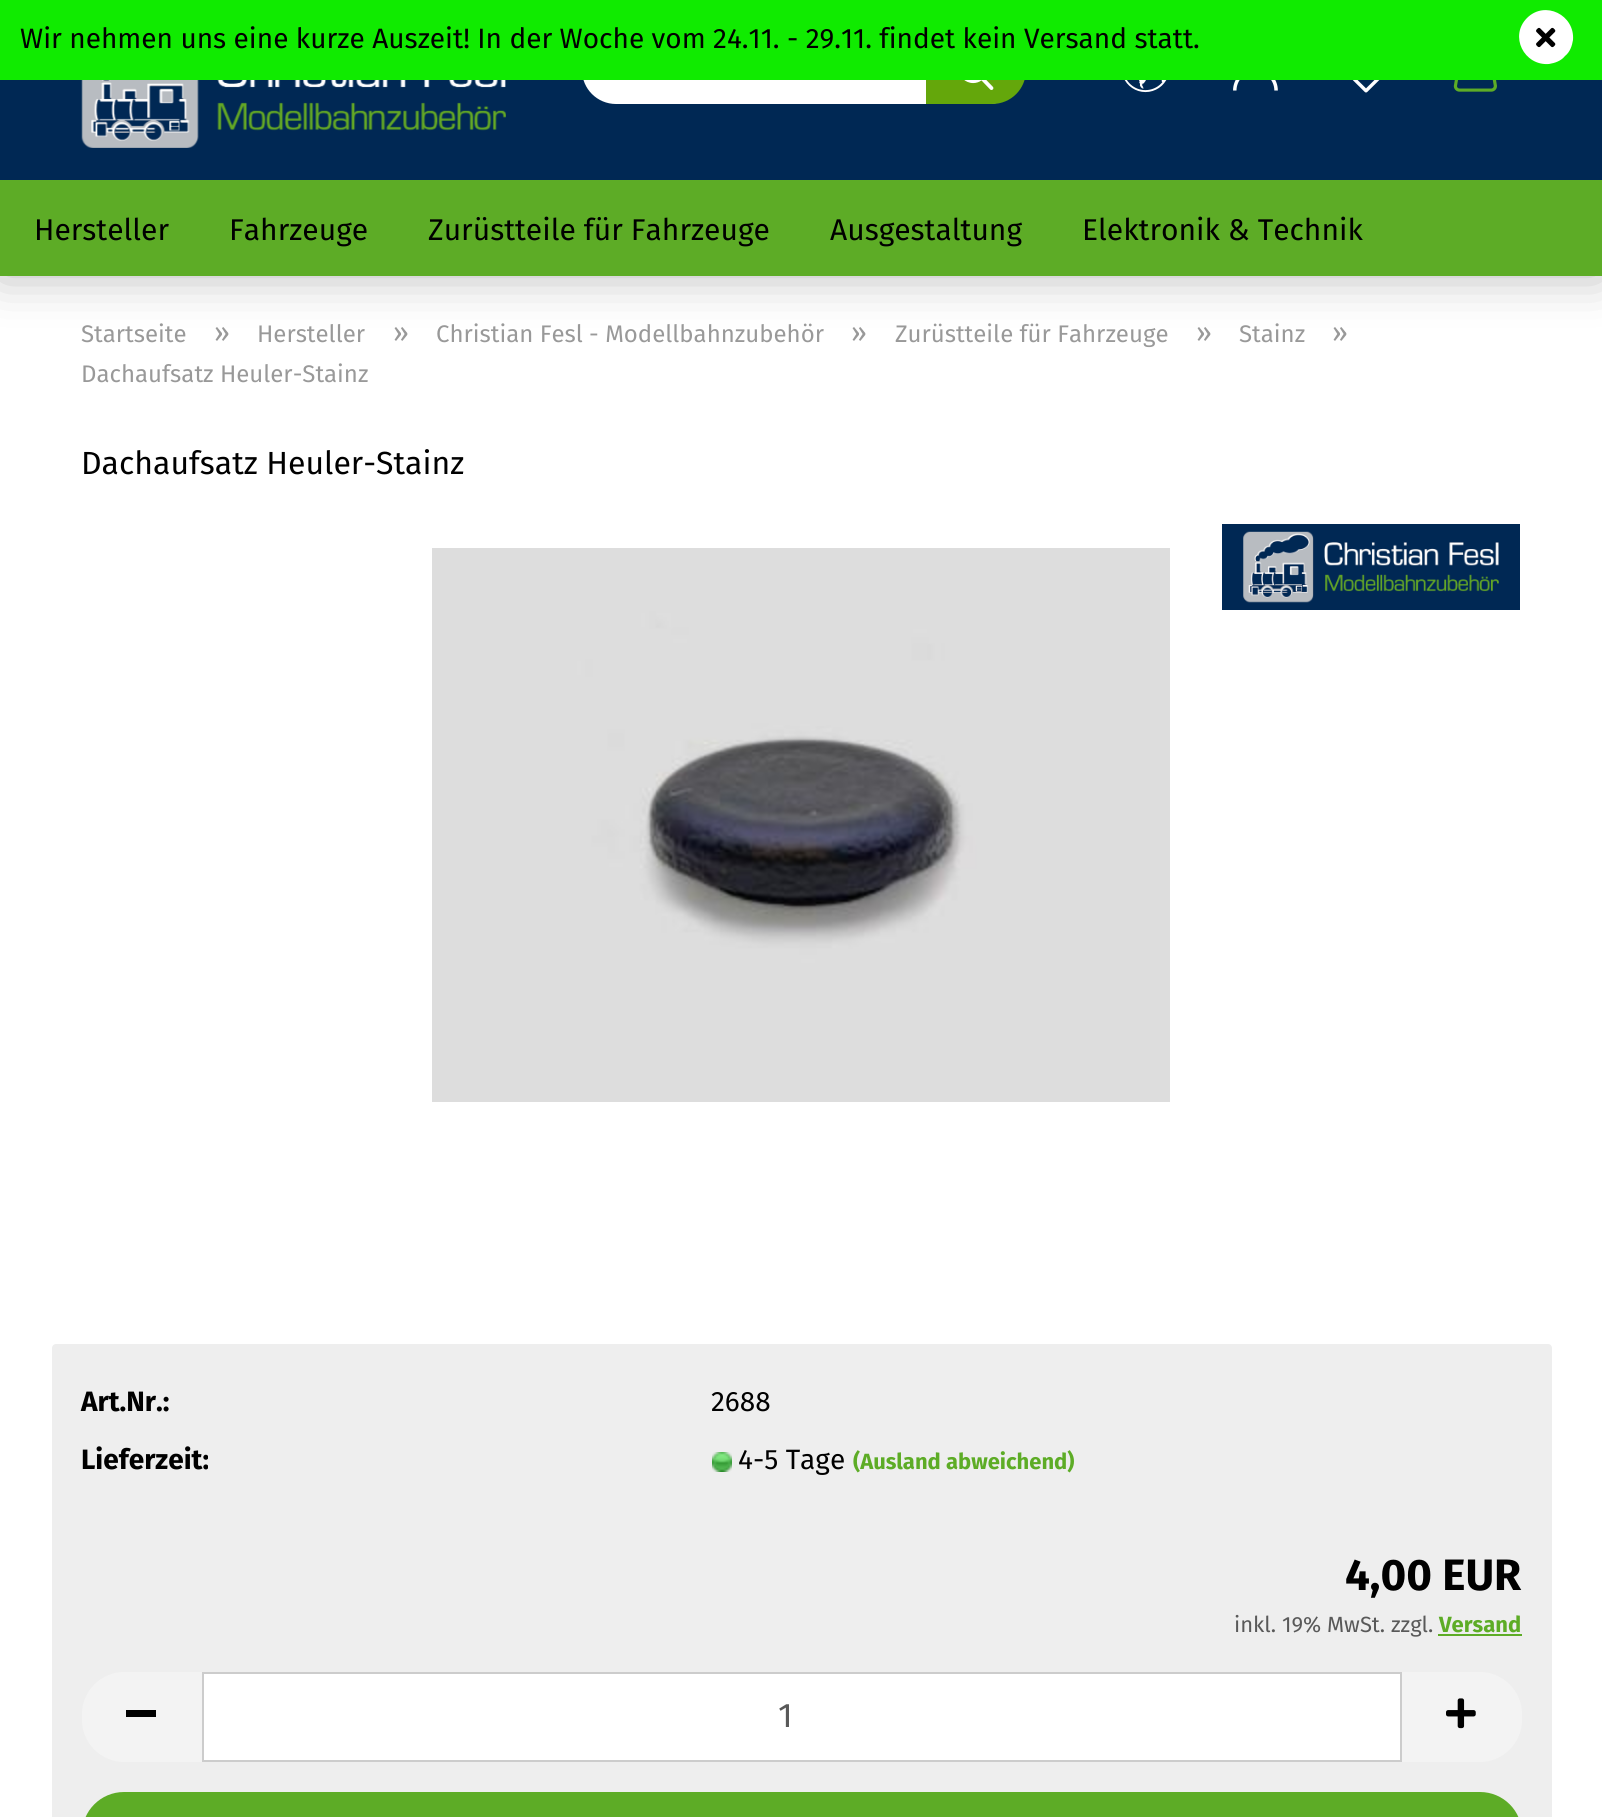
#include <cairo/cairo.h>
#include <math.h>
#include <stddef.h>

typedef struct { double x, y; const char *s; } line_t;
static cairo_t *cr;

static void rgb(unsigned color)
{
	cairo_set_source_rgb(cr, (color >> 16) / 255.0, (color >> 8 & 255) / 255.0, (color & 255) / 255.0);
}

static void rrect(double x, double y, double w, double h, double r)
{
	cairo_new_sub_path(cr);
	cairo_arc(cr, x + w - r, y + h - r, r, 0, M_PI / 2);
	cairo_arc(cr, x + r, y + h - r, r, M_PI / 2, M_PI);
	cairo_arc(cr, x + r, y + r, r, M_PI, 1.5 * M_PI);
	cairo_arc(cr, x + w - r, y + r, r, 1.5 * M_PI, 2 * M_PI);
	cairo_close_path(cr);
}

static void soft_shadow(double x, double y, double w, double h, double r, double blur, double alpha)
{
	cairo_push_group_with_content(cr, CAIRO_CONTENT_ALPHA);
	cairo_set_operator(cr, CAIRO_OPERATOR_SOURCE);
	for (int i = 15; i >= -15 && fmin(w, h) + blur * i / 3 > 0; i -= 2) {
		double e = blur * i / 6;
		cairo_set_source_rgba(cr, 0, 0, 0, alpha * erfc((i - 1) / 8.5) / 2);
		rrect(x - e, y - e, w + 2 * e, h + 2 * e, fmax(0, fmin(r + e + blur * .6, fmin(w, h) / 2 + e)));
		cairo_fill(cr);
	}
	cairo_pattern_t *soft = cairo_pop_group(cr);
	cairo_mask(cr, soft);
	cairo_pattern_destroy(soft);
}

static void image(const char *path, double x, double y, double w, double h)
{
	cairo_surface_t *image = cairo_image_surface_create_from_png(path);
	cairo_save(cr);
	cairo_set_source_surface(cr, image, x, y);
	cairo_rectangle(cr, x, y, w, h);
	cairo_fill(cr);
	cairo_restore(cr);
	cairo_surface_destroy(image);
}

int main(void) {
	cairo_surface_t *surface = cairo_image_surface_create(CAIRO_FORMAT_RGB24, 1602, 1817);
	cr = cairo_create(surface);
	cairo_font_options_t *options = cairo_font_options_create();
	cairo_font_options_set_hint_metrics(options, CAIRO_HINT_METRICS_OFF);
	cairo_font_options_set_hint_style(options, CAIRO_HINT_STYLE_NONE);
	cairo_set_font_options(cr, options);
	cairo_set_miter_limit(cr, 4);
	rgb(0xffffff);
	cairo_paint(cr);
	rgb(0x000000);
	soft_shadow(0, 0, 1602, 274, 0, 25, 0.3);
	rgb(0x002854);
	cairo_rectangle(cr, 0, 80, 1602, 100);
	cairo_fill(cr);
	rgb(0xffffff);
	rrect(584, 38, 436, 64, 32);
	cairo_fill_preserve(cr);
	cairo_set_line_width(cr, 4);
	cairo_stroke(cr);
	rgb(0x64a70b);
	cairo_new_path(cr);
	cairo_move_to(cr, 926, 36);
	cairo_line_to(cr, 992, 36);
	cairo_curve_to(cr, 1011, 36, 1026, 51, 1026, 70);
	cairo_curve_to(cr, 1026, 89, 1011, 104, 992, 104);
	cairo_line_to(cr, 926, 104);
	cairo_close_path(cr);
	cairo_fill(cr);
	rgb(0x10eb00);
	cairo_rectangle(cr, 0, 0, 1602, 80);
	cairo_fill(cr);
	rgb(0xffffff);
	cairo_new_path(cr);
	cairo_move_to(cr, 1527, 18);
	cairo_curve_to(cr, 1545, 0, 1575, 15, 1573, 40);
	cairo_curve_to(cr, 1572, 46, 1570, 52, 1565, 56);
	cairo_curve_to(cr, 1561, 61, 1555, 63, 1549, 64);
	cairo_curve_to(cr, 1524, 66, 1509, 36, 1527, 18);
	cairo_close_path(cr);
	cairo_fill(cr);
	image("img/1.png", 1536, 27, 20, 21);
	image("img/2.png", 964, 80, 30, 10);
	image("img/3.png", 81, 80, 425, 68);
	image("img/4.png", 1124, 80, 43, 13);
	image("img/5.png", 1233, 80, 45, 11);
	image("img/6.png", 1352, 80, 28, 13);
	image("img/7.png", 1453, 80, 44, 12);
	rgb(0x5dac26);
	cairo_rectangle(cr, 0, 180, 1602, 96);
	cairo_fill(cr);
	image("img/8.png", 432, 548, 738, 554);
	image("img/9.png", 1222, 524, 298, 86);
	rgb(0xeeeeee);
	rrect(52, 1344, 1500, 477, 4);
	cairo_fill(cr);
	image("img/10.png", 712, 1452, 20, 20);
	rgb(0x5dac26);
	cairo_rectangle(cr, 1438, 1634, 84, 2);
	cairo_fill(cr);
	rgb(0xf3f3f3);
	cairo_new_path(cr);
	cairo_move_to(cr, 124, 1672);
	cairo_line_to(cr, 202, 1672);
	cairo_line_to(cr, 202, 1762);
	cairo_line_to(cr, 124, 1762);
	cairo_curve_to(cr, 101, 1762, 82, 1743, 82, 1720);
	cairo_line_to(cr, 82, 1714);
	cairo_curve_to(cr, 82, 1691, 101, 1672, 124, 1672);
	cairo_close_path(cr);
	cairo_fill(cr);
	rgb(0x000000);
	cairo_rectangle(cr, 126, 1710, 30, 7);
	cairo_fill(cr);
	rgb(0xffffff);
	cairo_rectangle(cr, 203, 1673, 1198, 88);
	cairo_fill_preserve(cr);
	rgb(0xcccccc);
	cairo_set_line_width(cr, 2);
	cairo_stroke(cr);
	rgb(0xf3f3f3);
	cairo_new_path(cr);
	cairo_move_to(cr, 1402, 1672);
	cairo_line_to(cr, 1480, 1672);
	cairo_curve_to(cr, 1503, 1672, 1522, 1691, 1522, 1714);
	cairo_line_to(cr, 1522, 1720);
	cairo_curve_to(cr, 1522, 1743, 1503, 1762, 1480, 1762);
	cairo_line_to(cr, 1402, 1762);
	cairo_close_path(cr);
	cairo_fill(cr);
	image("img/11.png", 1446, 1698, 30, 31);
	rgb(0x5dac26);
	rrect(82, 1792, 1440, 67, 42);
	cairo_fill(cr);
	cairo_select_font_face(cr, "Fira Sans", CAIRO_FONT_SLANT_NORMAL, CAIRO_FONT_WEIGHT_NORMAL);
	cairo_set_font_size(cr, 28);
	rgb(0x000000);
	cairo_move_to(cr, 20, 48);
	cairo_show_text(cr, "Wir nehmen uns eine kurze Auszeit! In der Woche vom 24.11. - 29.11. findet kein Versand statt.");
	cairo_set_font_size(cr, 30);
	{
		static const line_t items[] = {
			{34, 240, "Hersteller"},
			{229, 240, "Fahrzeuge"},
			{428, 240, "Zurüstteile für Fahrzeuge"},
			{830, 240, "Ausgestaltung"},
			{1082, 240, "Elektronik & Technik"},
		};
		for (size_t i = 0; i < sizeof items / sizeof *items; i++) {
			cairo_move_to(cr, items[i].x, items[i].y);
			cairo_show_text(cr, items[i].s);
		}
	}
	cairo_set_font_size(cr, 24);
	rgb(0x999999);
	cairo_move_to(cr, 81, 342);
	cairo_show_text(cr, "Startseite");
	cairo_set_font_size(cr, 28);
	cairo_move_to(cr, 214, 342);
	cairo_show_text(cr, "»");
	cairo_set_font_size(cr, 24);
	cairo_move_to(cr, 257, 342);
	cairo_show_text(cr, "Hersteller");
	cairo_set_font_size(cr, 28);
	cairo_move_to(cr, 393, 342);
	cairo_show_text(cr, "»");
	cairo_set_font_size(cr, 24);
	cairo_move_to(cr, 436, 342);
	cairo_show_text(cr, "Christian Fesl - Modellbahnzubehör");
	cairo_set_font_size(cr, 28);
	cairo_move_to(cr, 851, 342);
	cairo_show_text(cr, "»");
	cairo_set_font_size(cr, 24);
	cairo_move_to(cr, 895, 342);
	cairo_show_text(cr, "Zurüstteile für Fahrzeuge");
	cairo_set_font_size(cr, 28);
	cairo_move_to(cr, 1196, 342);
	cairo_show_text(cr, "»");
	cairo_set_font_size(cr, 24);
	cairo_move_to(cr, 1239, 342);
	cairo_show_text(cr, "Stainz");
	cairo_set_font_size(cr, 28);
	cairo_move_to(cr, 1332, 342);
	cairo_show_text(cr, "»");
	cairo_set_font_size(cr, 24);
	cairo_move_to(cr, 81, 382);
	cairo_show_text(cr, "Dachaufsatz Heuler-Stainz");
	cairo_set_font_size(cr, 32);
	rgb(0x000000);
	cairo_move_to(cr, 81, 474);
	cairo_show_text(cr, "Dachaufsatz Heuler-Stainz");
	cairo_select_font_face(cr, "Fira Sans", CAIRO_FONT_SLANT_NORMAL, CAIRO_FONT_WEIGHT_BOLD);
	cairo_set_font_size(cr, 28);
	cairo_move_to(cr, 81, 1411);
	cairo_show_text(cr, "Art.Nr.:");
	cairo_select_font_face(cr, "Fira Sans", CAIRO_FONT_SLANT_NORMAL, CAIRO_FONT_WEIGHT_NORMAL);
	cairo_move_to(cr, 711, 1411);
	cairo_show_text(cr, "2688");
	cairo_select_font_face(cr, "Fira Sans", CAIRO_FONT_SLANT_NORMAL, CAIRO_FONT_WEIGHT_BOLD);
	cairo_move_to(cr, 81, 1469);
	cairo_show_text(cr, "Lieferzeit:");
	cairo_select_font_face(cr, "Fira Sans", CAIRO_FONT_SLANT_NORMAL, CAIRO_FONT_WEIGHT_NORMAL);
	cairo_move_to(cr, 738, 1469);
	cairo_show_text(cr, "4-5 Tage");
	cairo_select_font_face(cr, "Fira Sans", CAIRO_FONT_SLANT_NORMAL, CAIRO_FONT_WEIGHT_BOLD);
	cairo_set_font_size(cr, 22);
	rgb(0x5dac26);
	cairo_move_to(cr, 853, 1469);
	cairo_show_text(cr, "(Ausland abweichend)");
	cairo_set_font_size(cr, 44);
	rgb(0x000000);
	cairo_move_to(cr, 1345, 1590);
	cairo_show_text(cr, "4,00 EUR");
	cairo_select_font_face(cr, "Fira Sans", CAIRO_FONT_SLANT_NORMAL, CAIRO_FONT_WEIGHT_NORMAL);
	cairo_set_font_size(cr, 22);
	rgb(0x595959);
	cairo_move_to(cr, 1234, 1632);
	cairo_show_text(cr, "inkl. 19% MwSt. zzgl.");
	cairo_select_font_face(cr, "Fira Sans", CAIRO_FONT_SLANT_NORMAL, CAIRO_FONT_WEIGHT_BOLD);
	rgb(0x5dac26);
	cairo_move_to(cr, 1439, 1632);
	cairo_show_text(cr, "Versand");
	cairo_select_font_face(cr, "Fira Sans", CAIRO_FONT_SLANT_NORMAL, CAIRO_FONT_WEIGHT_NORMAL);
	cairo_set_font_size(cr, 34);
	rgb(0x595959);
	cairo_move_to(cr, 778, 1727);
	cairo_show_text(cr, "1");
	cairo_surface_write_to_png(surface, "page.png");
	cairo_font_options_destroy(options);
	cairo_destroy(cr);
	cairo_surface_destroy(surface);
	return 0;
}
